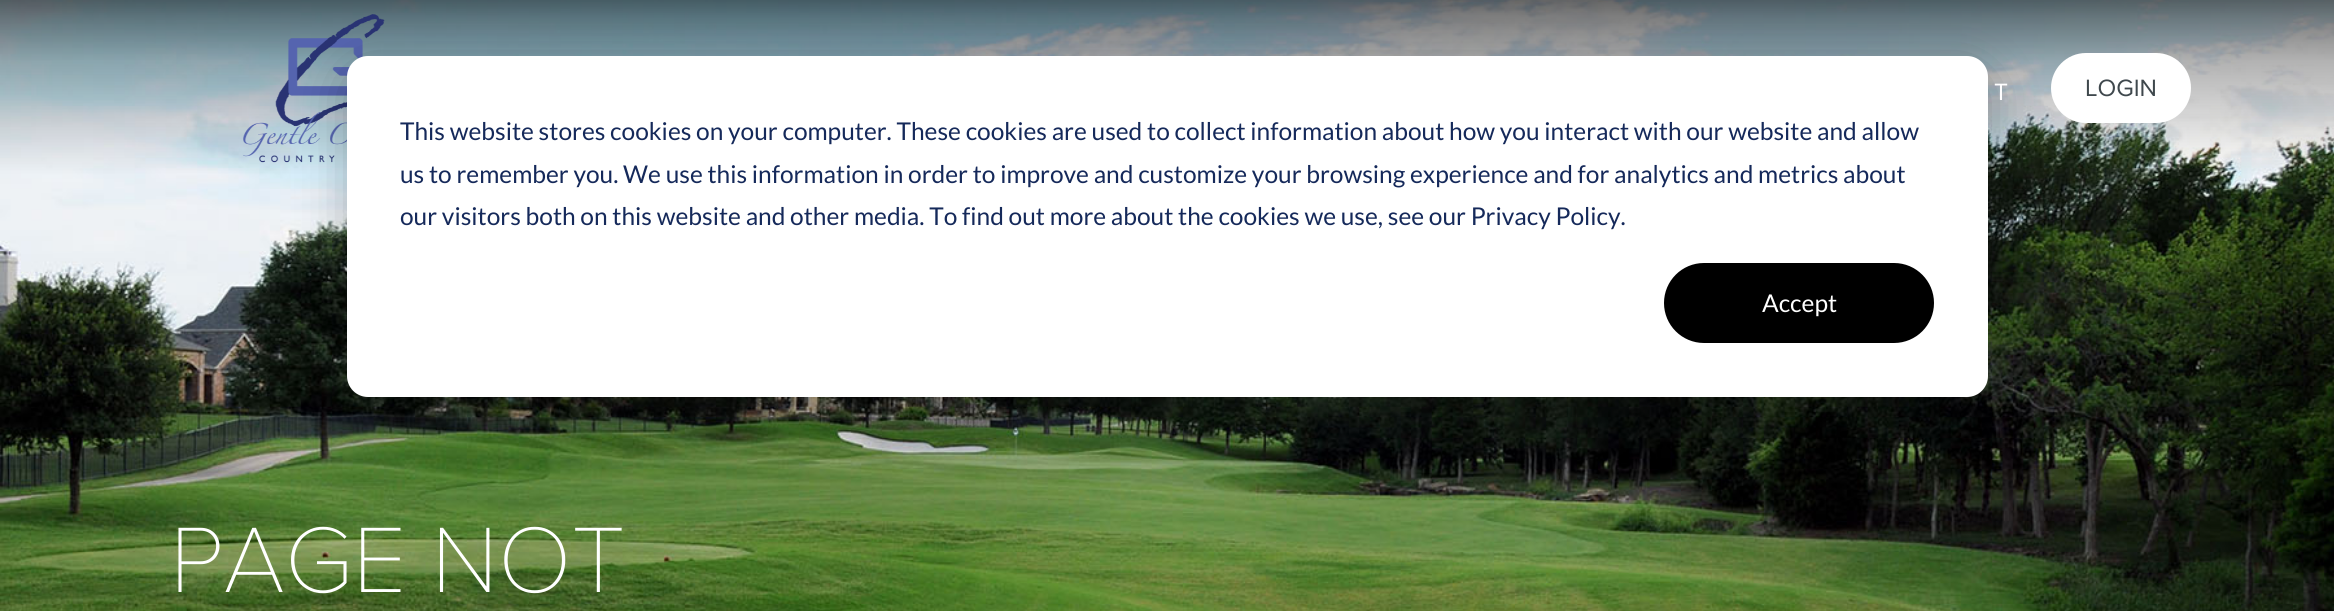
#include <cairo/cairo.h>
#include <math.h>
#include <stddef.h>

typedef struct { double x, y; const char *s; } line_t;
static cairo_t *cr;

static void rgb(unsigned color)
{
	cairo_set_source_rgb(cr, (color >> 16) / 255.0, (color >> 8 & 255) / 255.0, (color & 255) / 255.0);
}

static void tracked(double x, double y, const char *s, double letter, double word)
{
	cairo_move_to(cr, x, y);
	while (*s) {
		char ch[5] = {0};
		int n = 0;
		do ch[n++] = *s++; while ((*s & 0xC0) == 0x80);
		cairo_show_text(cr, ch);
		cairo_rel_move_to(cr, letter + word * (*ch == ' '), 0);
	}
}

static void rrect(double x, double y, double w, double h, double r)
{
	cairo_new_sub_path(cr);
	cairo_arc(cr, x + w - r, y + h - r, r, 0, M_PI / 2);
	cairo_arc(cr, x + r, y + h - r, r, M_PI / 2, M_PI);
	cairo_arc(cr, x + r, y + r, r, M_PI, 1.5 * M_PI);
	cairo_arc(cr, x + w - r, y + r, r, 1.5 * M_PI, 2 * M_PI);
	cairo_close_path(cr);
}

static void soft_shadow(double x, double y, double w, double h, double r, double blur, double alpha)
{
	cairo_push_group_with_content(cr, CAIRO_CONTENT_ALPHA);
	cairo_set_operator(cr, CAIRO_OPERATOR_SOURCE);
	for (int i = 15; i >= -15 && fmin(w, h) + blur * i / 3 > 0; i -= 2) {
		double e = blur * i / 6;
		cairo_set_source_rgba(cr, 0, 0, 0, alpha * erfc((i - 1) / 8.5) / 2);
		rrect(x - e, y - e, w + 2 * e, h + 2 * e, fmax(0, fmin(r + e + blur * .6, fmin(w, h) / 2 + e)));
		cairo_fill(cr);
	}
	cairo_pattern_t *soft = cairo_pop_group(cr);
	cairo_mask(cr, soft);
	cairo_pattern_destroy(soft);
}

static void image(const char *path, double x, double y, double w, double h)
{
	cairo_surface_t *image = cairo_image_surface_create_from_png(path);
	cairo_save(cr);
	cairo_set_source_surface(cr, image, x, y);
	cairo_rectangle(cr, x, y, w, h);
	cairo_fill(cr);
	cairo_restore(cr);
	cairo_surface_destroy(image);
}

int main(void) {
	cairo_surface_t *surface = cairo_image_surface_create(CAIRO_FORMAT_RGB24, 2334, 611);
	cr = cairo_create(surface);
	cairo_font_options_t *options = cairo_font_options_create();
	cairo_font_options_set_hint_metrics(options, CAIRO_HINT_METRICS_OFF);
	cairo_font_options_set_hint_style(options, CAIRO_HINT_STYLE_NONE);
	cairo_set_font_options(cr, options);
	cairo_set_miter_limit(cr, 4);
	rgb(0xffffff);
	cairo_paint(cr);
	image("img/2.png", 0, 0, 2334, 611);
	image("img/1.png", 243, 14, 142, 149);
	rgb(0xffffff);
	rrect(2051, 53, 140, 70, 35);
	cairo_fill(cr);
	rgb(0x000000);
	soft_shadow(347, 70, 1641, 341, 21, 24.5, 0.28);
	rgb(0xffffff);
	rrect(347, 56, 1641, 341, 21);
	cairo_fill(cr);
	rgb(0x000000);
	rrect(1665, 264, 268, 78, 39);
	cairo_fill_preserve(cr);
	cairo_stroke(cr);
	cairo_select_font_face(cr, "Proxima Nova", CAIRO_FONT_SLANT_NORMAL, CAIRO_FONT_WEIGHT_NORMAL);
	cairo_set_font_size(cr, 24.5);
	rgb(0xffffff);
	tracked(1994, 100, "T", 1, 0);
	rgb(0x3f484d);
	cairo_move_to(cr, 2085, 96);
	cairo_show_text(cr, "LOGIN");
	cairo_select_font_face(cr, "Lato", CAIRO_FONT_SLANT_NORMAL, CAIRO_FONT_WEIGHT_NORMAL);
	rgb(0x15295a);
	{
		static const line_t items[] = {
			{400, 140, "This website stores cookies on your computer. These cookies are used to collect information about how you interact with our website and allow"},
			{400, 183, "us to remember you. We use this information in order to improve and customize your browsing experience and for analytics and metrics about"},
			{400, 225, "our visitors both on this website and other media. To find out more about the cookies we use, see our Privacy Policy."},
		};
		for (size_t i = 0; i < sizeof items / sizeof *items; i++) {
			cairo_move_to(cr, items[i].x, items[i].y);
			cairo_show_text(cr, items[i].s);
		}
	}
	rgb(0xffffff);
	cairo_move_to(cr, 1762, 312);
	cairo_show_text(cr, "Accept");
	cairo_select_font_face(cr, "Proxima Nova Thin", CAIRO_FONT_SLANT_NORMAL, CAIRO_FONT_WEIGHT_NORMAL);
	cairo_set_font_size(cr, 96.25);
	cairo_move_to(cr, 170, 592);
	cairo_show_text(cr, "PAGE NOT");
	cairo_surface_write_to_png(surface, "page.png");
	cairo_font_options_destroy(options);
	cairo_destroy(cr);
	cairo_surface_destroy(surface);
	return 0;
}
